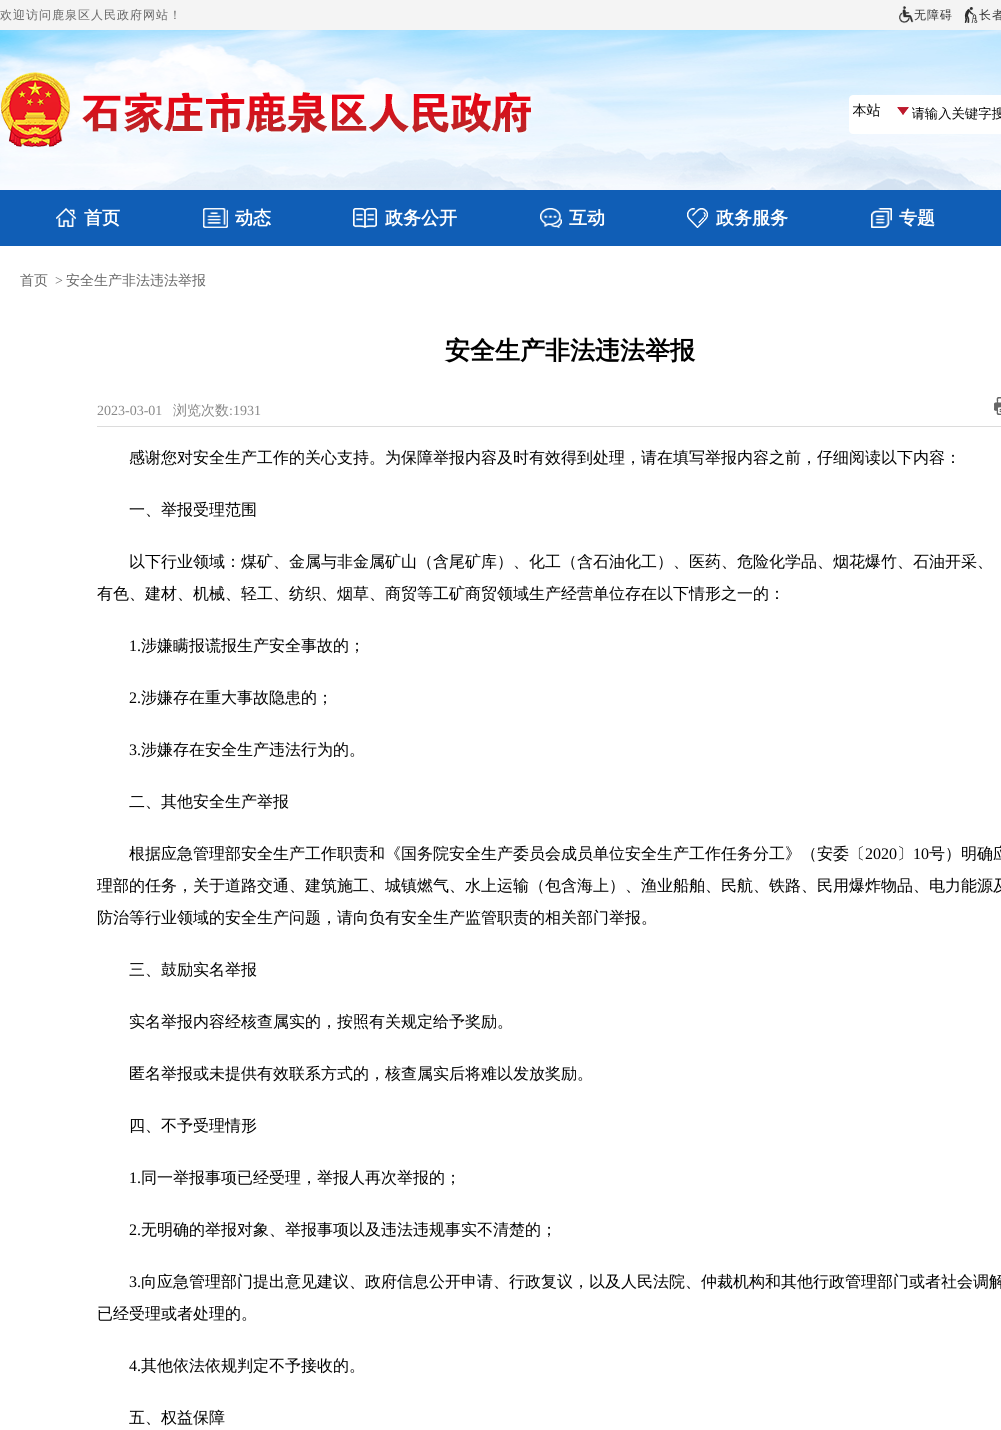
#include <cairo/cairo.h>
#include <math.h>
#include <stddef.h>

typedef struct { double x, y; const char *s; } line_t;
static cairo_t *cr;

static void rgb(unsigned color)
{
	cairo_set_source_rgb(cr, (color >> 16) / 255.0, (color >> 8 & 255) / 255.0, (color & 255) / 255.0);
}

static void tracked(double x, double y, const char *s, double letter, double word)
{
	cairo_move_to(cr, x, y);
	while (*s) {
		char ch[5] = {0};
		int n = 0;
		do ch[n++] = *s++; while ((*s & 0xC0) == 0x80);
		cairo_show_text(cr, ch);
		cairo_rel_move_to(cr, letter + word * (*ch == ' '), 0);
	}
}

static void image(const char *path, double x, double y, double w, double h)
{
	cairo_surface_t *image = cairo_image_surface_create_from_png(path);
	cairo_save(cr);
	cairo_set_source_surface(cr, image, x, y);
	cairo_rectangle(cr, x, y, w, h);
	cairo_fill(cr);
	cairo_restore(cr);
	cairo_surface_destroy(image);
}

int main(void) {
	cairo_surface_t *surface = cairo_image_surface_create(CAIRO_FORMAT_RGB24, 1001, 1430);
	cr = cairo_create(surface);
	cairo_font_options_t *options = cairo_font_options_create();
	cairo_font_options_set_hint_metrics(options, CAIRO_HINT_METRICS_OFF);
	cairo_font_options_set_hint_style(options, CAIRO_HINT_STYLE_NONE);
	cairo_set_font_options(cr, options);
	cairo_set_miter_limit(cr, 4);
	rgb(0xffffff);
	cairo_paint(cr);
	image("img/1.png", 0, 30, 1001, 160);
	rgb(0xf4f4f4);
	cairo_rectangle(cr, 0, 0, 1001, 30);
	cairo_fill(cr);
	image("img/2.png", 899, 6, 15, 18);
	image("img/3.png", 964, 7, 14, 16);
	image("img/4.png", 1, 72, 1000, 118);
	rgb(0x105eb6);
	cairo_rectangle(cr, 0, 190, 1001, 56);
	cairo_fill(cr);
	image("img/5.png", 56, 208, 20, 19);
	image("img/6.png", 203, 208, 25, 20);
	image("img/7.png", 353, 208, 24, 20);
	image("img/8.png", 540, 208, 22, 20);
	image("img/9.png", 687, 208, 21, 20);
	image("img/10.png", 871, 208, 21, 20);
	rgb(0xdcdcdc);
	cairo_rectangle(cr, 97, 426, 904, 1);
	cairo_fill(cr);
	image("img/11.png", 994, 397, 7, 18);
	cairo_select_font_face(cr, "WenQuanYi Zen Hei Medium", CAIRO_FONT_SLANT_NORMAL, CAIRO_FONT_WEIGHT_NORMAL);
	cairo_set_font_size(cr, 12);
	rgb(0x666666);
	tracked(0, 19, "欢迎访问鹿泉区人民政府网站！", 1, 0);
	rgb(0x333333);
	tracked(914, 19, "无障碍", 1, 0);
	tracked(979, 19, "长者", 1, 0);
	cairo_select_font_face(cr, "WenQuanYi Zen Hei", CAIRO_FONT_SLANT_NORMAL, CAIRO_FONT_WEIGHT_BOLD);
	cairo_set_font_size(cr, 18);
	rgb(0xffffff);
	{
		static const line_t items[] = {
			{84, 224, "首页"},
			{235, 224, "动态"},
			{385, 224, "政务公开"},
			{569, 224, "互动"},
			{716, 224, "政务服务"},
			{899, 224, "专题"},
		};
		for (size_t i = 0; i < sizeof items / sizeof *items; i++) {
			cairo_move_to(cr, items[i].x, items[i].y);
			cairo_show_text(cr, items[i].s);
		}
	}
	cairo_select_font_face(cr, "WenQuanYi Zen Hei Medium", CAIRO_FONT_SLANT_NORMAL, CAIRO_FONT_WEIGHT_NORMAL);
	cairo_set_font_size(cr, 14);
	rgb(0x666666);
	cairo_move_to(cr, 20, 285);
	cairo_show_text(cr, "首页");
	cairo_select_font_face(cr, "Liberation Serif", CAIRO_FONT_SLANT_NORMAL, CAIRO_FONT_WEIGHT_NORMAL);
	cairo_move_to(cr, 55, 285);
	cairo_show_text(cr, ">");
	cairo_select_font_face(cr, "WenQuanYi Zen Hei Medium", CAIRO_FONT_SLANT_NORMAL, CAIRO_FONT_WEIGHT_NORMAL);
	cairo_move_to(cr, 66, 285);
	cairo_show_text(cr, "安全生产非法违法举报");
	cairo_select_font_face(cr, "WenQuanYi Zen Hei", CAIRO_FONT_SLANT_NORMAL, CAIRO_FONT_WEIGHT_BOLD);
	cairo_set_font_size(cr, 25);
	rgb(0x000000);
	cairo_move_to(cr, 445, 359);
	cairo_show_text(cr, "安全生产非法违法举报");
	cairo_select_font_face(cr, "Liberation Serif", CAIRO_FONT_SLANT_NORMAL, CAIRO_FONT_WEIGHT_NORMAL);
	cairo_set_font_size(cr, 14);
	rgb(0x888888);
	cairo_move_to(cr, 97, 415);
	cairo_show_text(cr, "2023-03-01");
	cairo_select_font_face(cr, "WenQuanYi Zen Hei Medium", CAIRO_FONT_SLANT_NORMAL, CAIRO_FONT_WEIGHT_NORMAL);
	cairo_move_to(cr, 173, 415);
	cairo_show_text(cr, "浏览次数");
	cairo_select_font_face(cr, "Liberation Serif", CAIRO_FONT_SLANT_NORMAL, CAIRO_FONT_WEIGHT_NORMAL);
	cairo_move_to(cr, 229, 415);
	cairo_show_text(cr, ":1931");
	cairo_select_font_face(cr, "WenQuanYi Zen Hei Medium", CAIRO_FONT_SLANT_NORMAL, CAIRO_FONT_WEIGHT_NORMAL);
	cairo_set_font_size(cr, 16);
	rgb(0x000000);
	{
		static const line_t items[] = {
			{129, 463, "感谢您对安全生产工作的关心支持。为保障举报内容及时有效得到处理，请在填写举报内容之前，仔细阅读以下内容："},
			{129, 515, "一、举报受理范围"},
			{129, 567, "以下行业领域：煤矿、金属与非金属矿山（含尾矿库）、化工（含石油化工）、医药、危险化学品、烟花爆竹、石油开采、"},
			{97, 599, "有色、建材、机械、轻工、纺织、烟草、商贸等工矿商贸领域生产经营单位存在以下情形之一的："},
		};
		for (size_t i = 0; i < sizeof items / sizeof *items; i++) {
			cairo_move_to(cr, items[i].x, items[i].y);
			cairo_show_text(cr, items[i].s);
		}
	}
	cairo_select_font_face(cr, "Liberation Serif", CAIRO_FONT_SLANT_NORMAL, CAIRO_FONT_WEIGHT_NORMAL);
	cairo_move_to(cr, 129, 651);
	cairo_show_text(cr, "1.");
	cairo_select_font_face(cr, "WenQuanYi Zen Hei Medium", CAIRO_FONT_SLANT_NORMAL, CAIRO_FONT_WEIGHT_NORMAL);
	cairo_move_to(cr, 141, 651);
	cairo_show_text(cr, "涉嫌瞒报谎报生产安全事故的；");
	cairo_select_font_face(cr, "Liberation Serif", CAIRO_FONT_SLANT_NORMAL, CAIRO_FONT_WEIGHT_NORMAL);
	cairo_move_to(cr, 129, 703);
	cairo_show_text(cr, "2.");
	cairo_select_font_face(cr, "WenQuanYi Zen Hei Medium", CAIRO_FONT_SLANT_NORMAL, CAIRO_FONT_WEIGHT_NORMAL);
	cairo_move_to(cr, 141, 703);
	cairo_show_text(cr, "涉嫌存在重大事故隐患的；");
	cairo_select_font_face(cr, "Liberation Serif", CAIRO_FONT_SLANT_NORMAL, CAIRO_FONT_WEIGHT_NORMAL);
	cairo_move_to(cr, 129, 755);
	cairo_show_text(cr, "3.");
	cairo_select_font_face(cr, "WenQuanYi Zen Hei Medium", CAIRO_FONT_SLANT_NORMAL, CAIRO_FONT_WEIGHT_NORMAL);
	{
		static const line_t items[] = {
			{141, 755, "涉嫌存在安全生产违法行为的。"},
			{129, 807, "二、其他安全生产举报"},
			{129, 859, "根据应急管理部安全生产工作职责和《国务院安全生产委员会成员单位安全生产工作任务分工》（安委〔"},
		};
		for (size_t i = 0; i < sizeof items / sizeof *items; i++) {
			cairo_move_to(cr, items[i].x, items[i].y);
			cairo_show_text(cr, items[i].s);
		}
	}
	cairo_select_font_face(cr, "Liberation Serif", CAIRO_FONT_SLANT_NORMAL, CAIRO_FONT_WEIGHT_NORMAL);
	cairo_move_to(cr, 865, 859);
	cairo_show_text(cr, "2020");
	cairo_select_font_face(cr, "WenQuanYi Zen Hei Medium", CAIRO_FONT_SLANT_NORMAL, CAIRO_FONT_WEIGHT_NORMAL);
	cairo_move_to(cr, 897, 859);
	cairo_show_text(cr, "〕");
	cairo_select_font_face(cr, "Liberation Serif", CAIRO_FONT_SLANT_NORMAL, CAIRO_FONT_WEIGHT_NORMAL);
	cairo_move_to(cr, 913, 859);
	cairo_show_text(cr, "10");
	cairo_select_font_face(cr, "WenQuanYi Zen Hei Medium", CAIRO_FONT_SLANT_NORMAL, CAIRO_FONT_WEIGHT_NORMAL);
	{
		static const line_t items[] = {
			{929, 859, "号）明确应"},
			{97, 891, "理部的任务，关于道路交通、建筑施工、城镇燃气、水上运输（包含海上）、渔业船舶、民航、铁路、民用爆炸物品、电力能源及"},
			{97, 923, "防治等行业领域的安全生产问题，请向负有安全生产监管职责的相关部门举报。"},
			{129, 975, "三、鼓励实名举报"},
			{129, 1027, "实名举报内容经核查属实的，按照有关规定给予奖励。"},
			{129, 1079, "匿名举报或未提供有效联系方式的，核查属实后将难以发放奖励。"},
			{129, 1131, "四、不予受理情形"},
		};
		for (size_t i = 0; i < sizeof items / sizeof *items; i++) {
			cairo_move_to(cr, items[i].x, items[i].y);
			cairo_show_text(cr, items[i].s);
		}
	}
	cairo_select_font_face(cr, "Liberation Serif", CAIRO_FONT_SLANT_NORMAL, CAIRO_FONT_WEIGHT_NORMAL);
	cairo_move_to(cr, 129, 1183);
	cairo_show_text(cr, "1.");
	cairo_select_font_face(cr, "WenQuanYi Zen Hei Medium", CAIRO_FONT_SLANT_NORMAL, CAIRO_FONT_WEIGHT_NORMAL);
	cairo_move_to(cr, 141, 1183);
	cairo_show_text(cr, "同一举报事项已经受理，举报人再次举报的；");
	cairo_select_font_face(cr, "Liberation Serif", CAIRO_FONT_SLANT_NORMAL, CAIRO_FONT_WEIGHT_NORMAL);
	cairo_move_to(cr, 129, 1235);
	cairo_show_text(cr, "2.");
	cairo_select_font_face(cr, "WenQuanYi Zen Hei Medium", CAIRO_FONT_SLANT_NORMAL, CAIRO_FONT_WEIGHT_NORMAL);
	cairo_move_to(cr, 141, 1235);
	cairo_show_text(cr, "无明确的举报对象、举报事项以及违法违规事实不清楚的；");
	cairo_select_font_face(cr, "Liberation Serif", CAIRO_FONT_SLANT_NORMAL, CAIRO_FONT_WEIGHT_NORMAL);
	cairo_move_to(cr, 129, 1287);
	cairo_show_text(cr, "3.");
	cairo_select_font_face(cr, "WenQuanYi Zen Hei Medium", CAIRO_FONT_SLANT_NORMAL, CAIRO_FONT_WEIGHT_NORMAL);
	cairo_move_to(cr, 141, 1287);
	cairo_show_text(cr, "向应急管理部门提出意见建议、政府信息公开申请、行政复议，以及人民法院、仲裁机构和其他行政管理部门或者社会调解");
	cairo_move_to(cr, 97, 1319);
	cairo_show_text(cr, "已经受理或者处理的。");
	cairo_select_font_face(cr, "Liberation Serif", CAIRO_FONT_SLANT_NORMAL, CAIRO_FONT_WEIGHT_NORMAL);
	cairo_move_to(cr, 129, 1371);
	cairo_show_text(cr, "4.");
	cairo_select_font_face(cr, "WenQuanYi Zen Hei Medium", CAIRO_FONT_SLANT_NORMAL, CAIRO_FONT_WEIGHT_NORMAL);
	cairo_move_to(cr, 141, 1371);
	cairo_show_text(cr, "其他依法依规判定不予接收的。");
	cairo_move_to(cr, 129, 1423);
	cairo_show_text(cr, "五、权益保障");
	cairo_surface_write_to_png(surface, "page.png");
	cairo_font_options_destroy(options);
	cairo_destroy(cr);
	cairo_surface_destroy(surface);
	return 0;
}
